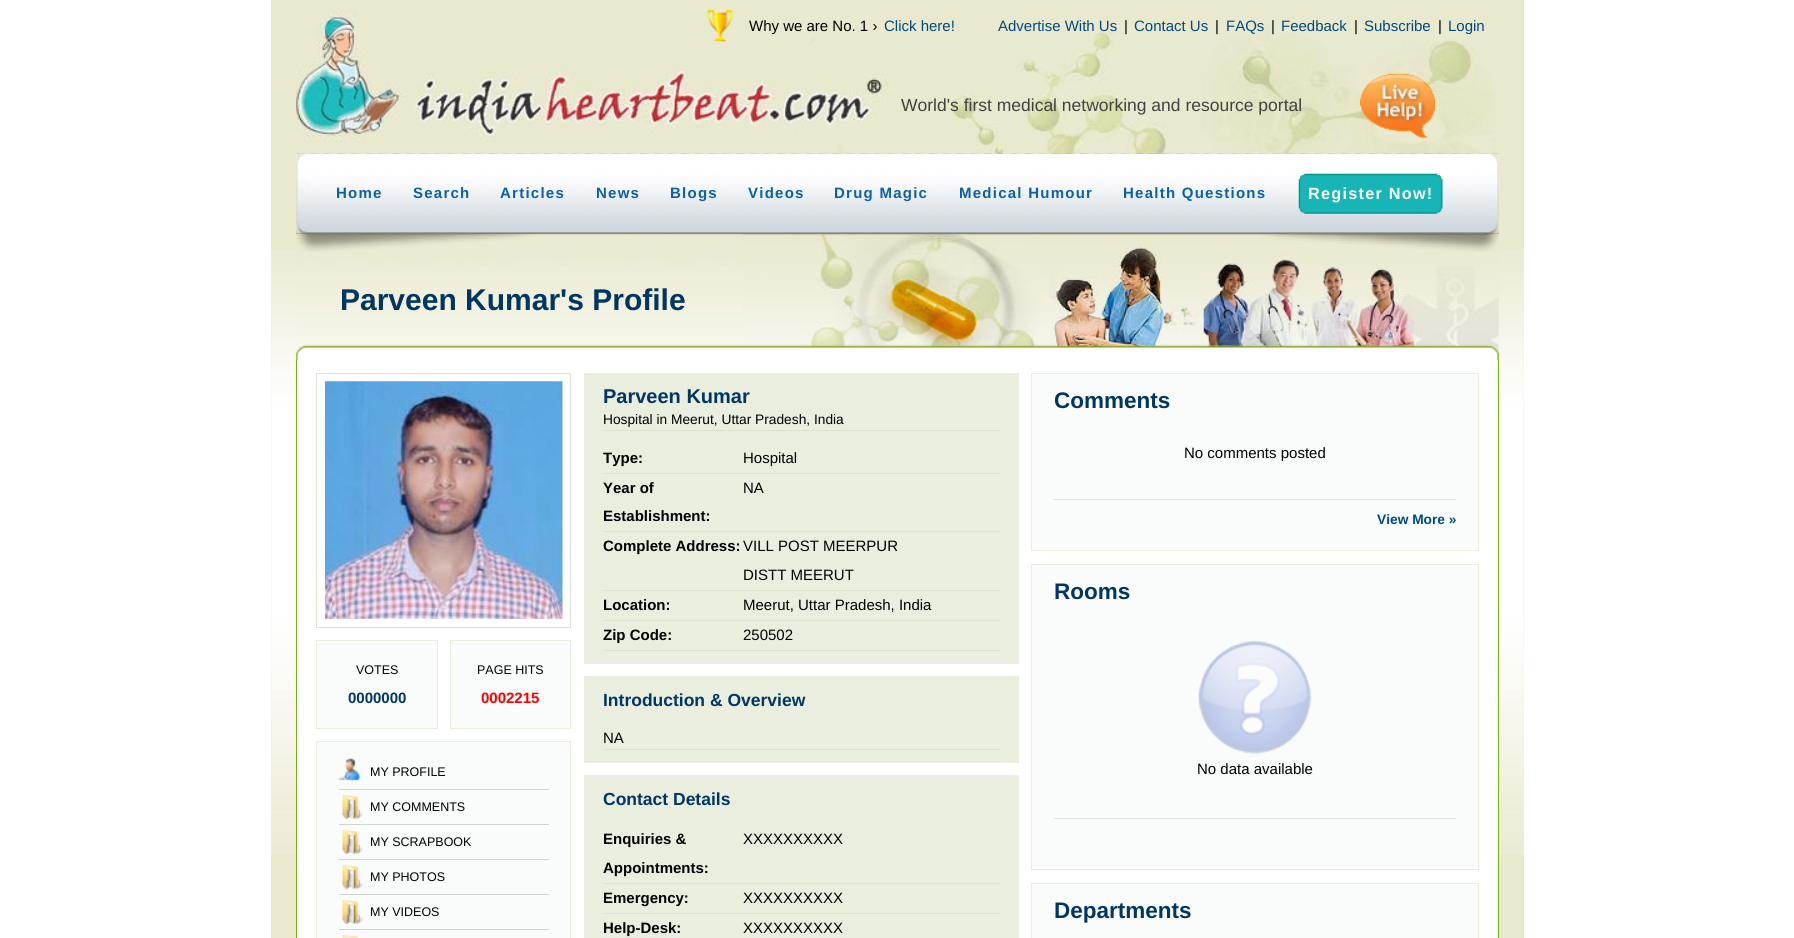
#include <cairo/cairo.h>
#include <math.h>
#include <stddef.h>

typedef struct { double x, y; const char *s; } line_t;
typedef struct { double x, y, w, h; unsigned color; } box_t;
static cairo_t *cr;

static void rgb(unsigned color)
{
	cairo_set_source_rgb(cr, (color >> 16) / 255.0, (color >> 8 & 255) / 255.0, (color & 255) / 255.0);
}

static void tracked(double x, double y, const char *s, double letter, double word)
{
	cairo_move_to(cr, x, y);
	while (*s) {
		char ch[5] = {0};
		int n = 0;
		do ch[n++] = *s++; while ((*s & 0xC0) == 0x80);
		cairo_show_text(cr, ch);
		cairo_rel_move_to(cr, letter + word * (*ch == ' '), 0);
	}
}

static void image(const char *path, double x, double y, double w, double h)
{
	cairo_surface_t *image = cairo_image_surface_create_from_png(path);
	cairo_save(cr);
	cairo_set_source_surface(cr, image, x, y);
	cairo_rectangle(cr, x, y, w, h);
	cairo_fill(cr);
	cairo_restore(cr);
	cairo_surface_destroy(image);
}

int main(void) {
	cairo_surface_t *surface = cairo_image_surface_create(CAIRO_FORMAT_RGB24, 1794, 938);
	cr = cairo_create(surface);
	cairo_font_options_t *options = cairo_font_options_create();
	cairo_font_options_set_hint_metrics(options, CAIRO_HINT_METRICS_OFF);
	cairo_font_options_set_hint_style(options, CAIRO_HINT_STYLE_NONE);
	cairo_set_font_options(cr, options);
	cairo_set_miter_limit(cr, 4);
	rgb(0xffffff);
	cairo_paint(cr);
	rgb(0xe9e9cf);
	cairo_rectangle(cr, 271, 0, 1253, 938);
	cairo_fill(cr);
	image("img/1.png", 271, 250, 1253, 604);
	image("img/2.png", 296, 3, 1200, 231);
	image("img/3.png", 707, 10, 26, 32);
	image("img/4.png", 1360, 72, 75, 67);
	image("img/10.png", 297, 233, 1201, 120);
	image("img/11.png", 742, 233, 757, 127);
	image("img/5.png", 296, 153, 1203, 81);
	image("img/6.png", 296, 154, 14, 80);
	image("img/7.png", 1298, 173, 145, 41);
	image("img/8.png", 1485, 154, 14, 80);
	image("img/9.png", 296, 233, 1203, 19);
	image("img/12.png", 296, 344, 1203, 16);
	{
		static const box_t items[] = {
			{297, 360, 1201, 578, 0xffffff},
			{1498, 360, 1, 578, 0x76b310},
			{296, 360, 1, 578, 0x76b310},
		};
		for (size_t i = 0; i < sizeof items / sizeof *items; i++) {
			rgb(items[i].color);
			cairo_rectangle(cr, items[i].x, items[i].y, items[i].w, items[i].h);
			cairo_fill(cr);
		}
	}
	cairo_rectangle(cr, 316.5, 373.5, 254, 254);
	rgb(0xdee2d4);
	cairo_set_line_width(cr, 1);
	cairo_stroke(cr);
	image("img/13.png", 325, 381, 238, 238);
	rgb(0xfafbfb);
	cairo_rectangle(cr, 316.5, 640.5, 121, 88);
	cairo_fill_preserve(cr);
	rgb(0xeaeedf);
	cairo_stroke(cr);
	rgb(0xfafbfb);
	cairo_rectangle(cr, 450.5, 640.5, 120, 88);
	cairo_fill_preserve(cr);
	rgb(0xeaeedf);
	cairo_stroke(cr);
	rgb(0xfafbfb);
	cairo_rectangle(cr, 316.5, 741.5, 254, 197);
	cairo_fill_preserve(cr);
	rgb(0xeaeedf);
	cairo_stroke(cr);
	image("img/14.png", 338, 758, 23, 23);
	rgb(0xd3d4cf);
	cairo_rectangle(cr, 339, 789, 210, 1);
	cairo_fill(cr);
	image("img/15.png", 342, 794, 21, 25);
	cairo_rectangle(cr, 339, 824, 210, 1);
	cairo_fill(cr);
	image("img/15.png", 342, 829, 21, 25);
	cairo_rectangle(cr, 339, 859, 210, 1);
	cairo_fill(cr);
	image("img/15.png", 342, 864, 21, 25);
	cairo_rectangle(cr, 339, 894, 210, 1);
	cairo_fill(cr);
	image("img/15.png", 342, 899, 21, 25);
	cairo_rectangle(cr, 339, 929, 210, 1);
	cairo_fill(cr);
	image("img/16.png", 342, 934, 17, 4);
	{
		static const box_t items[] = {
			{584, 373, 435, 291, 0xeaeedf},
			{603, 430, 397, 1, 0xdee2d4},
			{603, 473, 397, 1, 0xdee2d4},
			{603, 531, 397, 1, 0xdee2d4},
			{603, 590, 397, 1, 0xdee2d4},
			{603, 620, 397, 1, 0xdee2d4},
			{603, 650, 397, 1, 0xdee2d4},
			{584, 676, 435, 87, 0xeaeedf},
			{603, 749, 397, 1, 0xdee2d4},
			{584, 775, 435, 163, 0xeaeedf},
			{603, 883, 397, 1, 0xdee2d4},
			{603, 913, 397, 1, 0xdee2d4},
		};
		for (size_t i = 0; i < sizeof items / sizeof *items; i++) {
			rgb(items[i].color);
			cairo_rectangle(cr, items[i].x, items[i].y, items[i].w, items[i].h);
			cairo_fill(cr);
		}
	}
	rgb(0xfafbfb);
	cairo_rectangle(cr, 1031.5, 373.5, 447, 177);
	cairo_fill_preserve(cr);
	rgb(0xeaeedf);
	cairo_stroke(cr);
	rgb(0xe1e1e1);
	cairo_rectangle(cr, 1054, 499, 402, 1);
	cairo_fill(cr);
	rgb(0xfafbfb);
	cairo_rectangle(cr, 1031.5, 564.5, 447, 305);
	cairo_fill_preserve(cr);
	rgb(0xeaeedf);
	cairo_stroke(cr);
	image("img/17.png", 1198, 641, 114, 113);
	rgb(0xe1e1e1);
	cairo_rectangle(cr, 1054, 818, 402, 1);
	cairo_fill(cr);
	rgb(0xfafbfb);
	cairo_rectangle(cr, 1031.5, 883.5, 447, 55);
	cairo_fill_preserve(cr);
	rgb(0xeaeedf);
	cairo_stroke(cr);
	cairo_select_font_face(cr, "Liberation Sans", CAIRO_FONT_SLANT_NORMAL, CAIRO_FONT_WEIGHT_NORMAL);
	cairo_set_font_size(cr, 15);
	rgb(0x000000);
	cairo_move_to(cr, 749, 31);
	cairo_show_text(cr, "Why we are No. 1 ›");
	rgb(0x004a80);
	cairo_move_to(cr, 884, 31);
	cairo_show_text(cr, "Click here!");
	cairo_move_to(cr, 998, 31);
	cairo_show_text(cr, "Advertise With Us");
	rgb(0x000000);
	cairo_move_to(cr, 1124, 31);
	cairo_show_text(cr, "|");
	rgb(0x004a80);
	cairo_move_to(cr, 1134, 31);
	cairo_show_text(cr, "Contact Us");
	rgb(0x000000);
	cairo_move_to(cr, 1215, 31);
	cairo_show_text(cr, "|");
	rgb(0x004a80);
	cairo_move_to(cr, 1226, 31);
	cairo_show_text(cr, "FAQs");
	rgb(0x000000);
	cairo_move_to(cr, 1271, 31);
	cairo_show_text(cr, "|");
	rgb(0x004a80);
	cairo_move_to(cr, 1281, 31);
	cairo_show_text(cr, "Feedback");
	rgb(0x000000);
	cairo_move_to(cr, 1354, 31);
	cairo_show_text(cr, "|");
	rgb(0x004a80);
	cairo_move_to(cr, 1364, 31);
	cairo_show_text(cr, "Subscribe");
	rgb(0x000000);
	cairo_move_to(cr, 1438, 31);
	cairo_show_text(cr, "|");
	rgb(0x004a80);
	cairo_move_to(cr, 1448, 31);
	cairo_show_text(cr, "Login");
	cairo_set_font_size(cr, 17.5);
	rgb(0x424242);
	cairo_move_to(cr, 901, 111);
	cairo_show_text(cr, "World's first medical networking and resource portal");
	cairo_select_font_face(cr, "Liberation Sans", CAIRO_FONT_SLANT_NORMAL, CAIRO_FONT_WEIGHT_BOLD);
	cairo_set_font_size(cr, 15);
	rgb(0x0a60a9);
	{
		static const line_t items[] = {
			{336, 198, "Home"},
			{413, 198, "Search"},
			{500, 198, "Articles"},
			{596, 198, "News"},
			{670, 198, "Blogs"},
			{748, 198, "Videos"},
			{834, 198, "Drug Magic"},
			{959, 198, "Medical Humour"},
			{1123, 198, "Health Questions"},
		};
		for (size_t i = 0; i < sizeof items / sizeof *items; i++) {
			tracked(items[i].x, items[i].y, items[i].s, 1.25, 0);
		}
	}
	cairo_set_font_size(cr, 16.25);
	rgb(0xffffff);
	tracked(1308, 199, "Register Now!", 1.25, 0);
	cairo_set_font_size(cr, 30);
	rgb(0x003663);
	cairo_move_to(cr, 340, 310);
	cairo_show_text(cr, "Parveen Kumar's Profile");
	cairo_select_font_face(cr, "Liberation Sans", CAIRO_FONT_SLANT_NORMAL, CAIRO_FONT_WEIGHT_NORMAL);
	cairo_set_font_size(cr, 12.5);
	rgb(0x000000);
	cairo_move_to(cr, 356, 674);
	cairo_show_text(cr, "VOTES");
	cairo_select_font_face(cr, "Liberation Sans", CAIRO_FONT_SLANT_NORMAL, CAIRO_FONT_WEIGHT_BOLD);
	cairo_set_font_size(cr, 15);
	rgb(0x003663);
	cairo_move_to(cr, 348, 703);
	cairo_show_text(cr, "0000000");
	cairo_select_font_face(cr, "Liberation Sans", CAIRO_FONT_SLANT_NORMAL, CAIRO_FONT_WEIGHT_NORMAL);
	cairo_set_font_size(cr, 12.5);
	rgb(0x000000);
	cairo_move_to(cr, 477, 674);
	cairo_show_text(cr, "PAGE HITS");
	cairo_select_font_face(cr, "Liberation Sans", CAIRO_FONT_SLANT_NORMAL, CAIRO_FONT_WEIGHT_BOLD);
	cairo_set_font_size(cr, 15);
	rgb(0xff0000);
	cairo_move_to(cr, 481, 703);
	cairo_show_text(cr, "0002215");
	cairo_select_font_face(cr, "Liberation Sans", CAIRO_FONT_SLANT_NORMAL, CAIRO_FONT_WEIGHT_NORMAL);
	cairo_set_font_size(cr, 12.5);
	rgb(0x000000);
	{
		static const line_t items[] = {
			{370, 776, "MY PROFILE"},
			{370, 811, "MY COMMENTS"},
			{370, 846, "MY SCRAPBOOK"},
			{370, 881, "MY PHOTOS"},
			{370, 916, "MY VIDEOS"},
		};
		for (size_t i = 0; i < sizeof items / sizeof *items; i++) {
			cairo_move_to(cr, items[i].x, items[i].y);
			cairo_show_text(cr, items[i].s);
		}
	}
	cairo_select_font_face(cr, "Liberation Sans", CAIRO_FONT_SLANT_NORMAL, CAIRO_FONT_WEIGHT_BOLD);
	cairo_set_font_size(cr, 20);
	rgb(0x003663);
	cairo_move_to(cr, 603, 403);
	cairo_show_text(cr, "Parveen Kumar");
	cairo_select_font_face(cr, "Liberation Sans", CAIRO_FONT_SLANT_NORMAL, CAIRO_FONT_WEIGHT_NORMAL);
	cairo_set_font_size(cr, 13.75);
	rgb(0x000000);
	cairo_move_to(cr, 603, 424);
	cairo_show_text(cr, "Hospital in Meerut, Uttar Pradesh, India");
	cairo_select_font_face(cr, "Liberation Sans", CAIRO_FONT_SLANT_NORMAL, CAIRO_FONT_WEIGHT_BOLD);
	cairo_set_font_size(cr, 15);
	cairo_move_to(cr, 603, 463);
	cairo_show_text(cr, "Type:");
	cairo_select_font_face(cr, "Liberation Sans", CAIRO_FONT_SLANT_NORMAL, CAIRO_FONT_WEIGHT_NORMAL);
	cairo_move_to(cr, 743, 463);
	cairo_show_text(cr, "Hospital");
	cairo_select_font_face(cr, "Liberation Sans", CAIRO_FONT_SLANT_NORMAL, CAIRO_FONT_WEIGHT_BOLD);
	cairo_move_to(cr, 603, 493);
	cairo_show_text(cr, "Year of");
	cairo_move_to(cr, 603, 521);
	cairo_show_text(cr, "Establishment:");
	cairo_select_font_face(cr, "Liberation Sans", CAIRO_FONT_SLANT_NORMAL, CAIRO_FONT_WEIGHT_NORMAL);
	cairo_move_to(cr, 743, 493);
	cairo_show_text(cr, "NA");
	cairo_select_font_face(cr, "Liberation Sans", CAIRO_FONT_SLANT_NORMAL, CAIRO_FONT_WEIGHT_BOLD);
	cairo_move_to(cr, 603, 551);
	cairo_show_text(cr, "Complete Address:");
	cairo_select_font_face(cr, "Liberation Sans", CAIRO_FONT_SLANT_NORMAL, CAIRO_FONT_WEIGHT_NORMAL);
	cairo_move_to(cr, 743, 551);
	cairo_show_text(cr, "VILL POST MEERPUR");
	cairo_move_to(cr, 743, 580);
	cairo_show_text(cr, "DISTT MEERUT");
	cairo_select_font_face(cr, "Liberation Sans", CAIRO_FONT_SLANT_NORMAL, CAIRO_FONT_WEIGHT_BOLD);
	cairo_move_to(cr, 603, 610);
	cairo_show_text(cr, "Location:");
	cairo_select_font_face(cr, "Liberation Sans", CAIRO_FONT_SLANT_NORMAL, CAIRO_FONT_WEIGHT_NORMAL);
	cairo_move_to(cr, 743, 610);
	cairo_show_text(cr, "Meerut, Uttar Pradesh, India");
	cairo_select_font_face(cr, "Liberation Sans", CAIRO_FONT_SLANT_NORMAL, CAIRO_FONT_WEIGHT_BOLD);
	cairo_move_to(cr, 603, 640);
	cairo_show_text(cr, "Zip Code:");
	cairo_select_font_face(cr, "Liberation Sans", CAIRO_FONT_SLANT_NORMAL, CAIRO_FONT_WEIGHT_NORMAL);
	cairo_move_to(cr, 743, 640);
	cairo_show_text(cr, "250502");
	cairo_select_font_face(cr, "Liberation Sans", CAIRO_FONT_SLANT_NORMAL, CAIRO_FONT_WEIGHT_BOLD);
	cairo_set_font_size(cr, 17.5);
	rgb(0x003663);
	cairo_move_to(cr, 603, 706);
	cairo_show_text(cr, "Introduction & Overview");
	cairo_select_font_face(cr, "Liberation Sans", CAIRO_FONT_SLANT_NORMAL, CAIRO_FONT_WEIGHT_NORMAL);
	cairo_set_font_size(cr, 15);
	rgb(0x000000);
	cairo_move_to(cr, 603, 743);
	cairo_show_text(cr, "NA");
	cairo_select_font_face(cr, "Liberation Sans", CAIRO_FONT_SLANT_NORMAL, CAIRO_FONT_WEIGHT_BOLD);
	cairo_set_font_size(cr, 17.5);
	rgb(0x003663);
	cairo_move_to(cr, 603, 805);
	cairo_show_text(cr, "Contact Details");
	cairo_set_font_size(cr, 15);
	rgb(0x000000);
	cairo_move_to(cr, 603, 844);
	cairo_show_text(cr, "Enquiries &");
	cairo_move_to(cr, 603, 873);
	cairo_show_text(cr, "Appointments:");
	cairo_select_font_face(cr, "Liberation Sans", CAIRO_FONT_SLANT_NORMAL, CAIRO_FONT_WEIGHT_NORMAL);
	cairo_move_to(cr, 743, 844);
	cairo_show_text(cr, "XXXXXXXXXX");
	cairo_select_font_face(cr, "Liberation Sans", CAIRO_FONT_SLANT_NORMAL, CAIRO_FONT_WEIGHT_BOLD);
	cairo_move_to(cr, 603, 903);
	cairo_show_text(cr, "Emergency:");
	cairo_select_font_face(cr, "Liberation Sans", CAIRO_FONT_SLANT_NORMAL, CAIRO_FONT_WEIGHT_NORMAL);
	cairo_move_to(cr, 743, 903);
	cairo_show_text(cr, "XXXXXXXXXX");
	cairo_select_font_face(cr, "Liberation Sans", CAIRO_FONT_SLANT_NORMAL, CAIRO_FONT_WEIGHT_BOLD);
	cairo_move_to(cr, 603, 933);
	cairo_show_text(cr, "Help-Desk:");
	cairo_select_font_face(cr, "Liberation Sans", CAIRO_FONT_SLANT_NORMAL, CAIRO_FONT_WEIGHT_NORMAL);
	cairo_move_to(cr, 743, 933);
	cairo_show_text(cr, "XXXXXXXXXX");
	cairo_select_font_face(cr, "Liberation Sans", CAIRO_FONT_SLANT_NORMAL, CAIRO_FONT_WEIGHT_BOLD);
	cairo_set_font_size(cr, 22.5);
	rgb(0x003663);
	cairo_move_to(cr, 1054, 408);
	cairo_show_text(cr, "Comments");
	cairo_select_font_face(cr, "Liberation Sans", CAIRO_FONT_SLANT_NORMAL, CAIRO_FONT_WEIGHT_NORMAL);
	cairo_set_font_size(cr, 15);
	rgb(0x000000);
	cairo_move_to(cr, 1184, 458);
	cairo_show_text(cr, "No comments posted");
	cairo_select_font_face(cr, "Liberation Sans", CAIRO_FONT_SLANT_NORMAL, CAIRO_FONT_WEIGHT_BOLD);
	cairo_set_font_size(cr, 13.75);
	rgb(0x004a80);
	cairo_move_to(cr, 1377, 524);
	cairo_show_text(cr, "View More »");
	cairo_set_font_size(cr, 22.5);
	rgb(0x003663);
	cairo_move_to(cr, 1054, 599);
	cairo_show_text(cr, "Rooms");
	cairo_select_font_face(cr, "Liberation Sans", CAIRO_FONT_SLANT_NORMAL, CAIRO_FONT_WEIGHT_NORMAL);
	cairo_set_font_size(cr, 15);
	rgb(0x000000);
	cairo_move_to(cr, 1197, 774);
	cairo_show_text(cr, "No data available");
	cairo_select_font_face(cr, "Liberation Sans", CAIRO_FONT_SLANT_NORMAL, CAIRO_FONT_WEIGHT_BOLD);
	cairo_set_font_size(cr, 22.5);
	rgb(0x003663);
	cairo_move_to(cr, 1054, 918);
	cairo_show_text(cr, "Departments");
	cairo_surface_write_to_png(surface, "page.png");
	cairo_font_options_destroy(options);
	cairo_destroy(cr);
	cairo_surface_destroy(surface);
	return 0;
}
